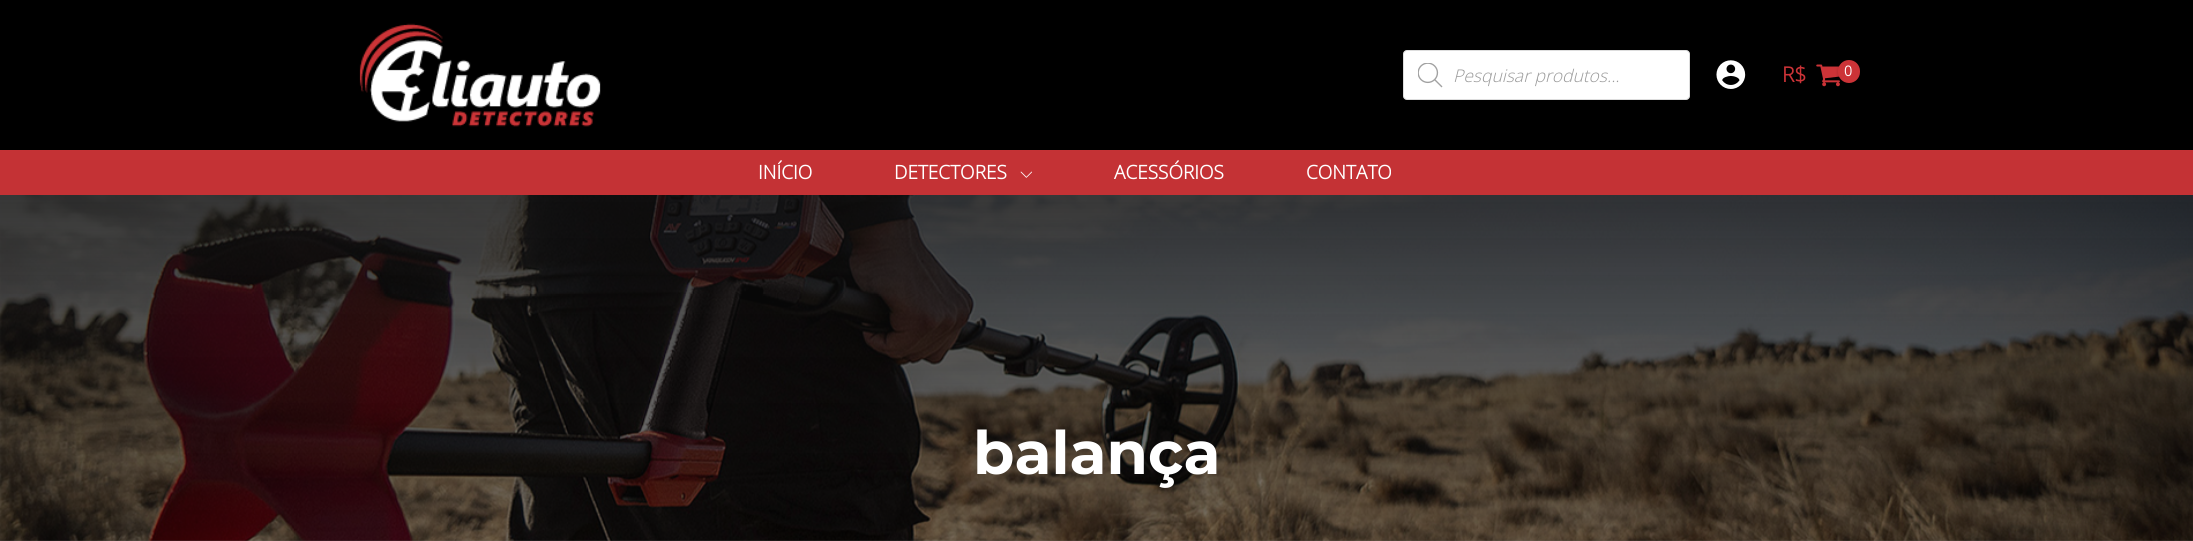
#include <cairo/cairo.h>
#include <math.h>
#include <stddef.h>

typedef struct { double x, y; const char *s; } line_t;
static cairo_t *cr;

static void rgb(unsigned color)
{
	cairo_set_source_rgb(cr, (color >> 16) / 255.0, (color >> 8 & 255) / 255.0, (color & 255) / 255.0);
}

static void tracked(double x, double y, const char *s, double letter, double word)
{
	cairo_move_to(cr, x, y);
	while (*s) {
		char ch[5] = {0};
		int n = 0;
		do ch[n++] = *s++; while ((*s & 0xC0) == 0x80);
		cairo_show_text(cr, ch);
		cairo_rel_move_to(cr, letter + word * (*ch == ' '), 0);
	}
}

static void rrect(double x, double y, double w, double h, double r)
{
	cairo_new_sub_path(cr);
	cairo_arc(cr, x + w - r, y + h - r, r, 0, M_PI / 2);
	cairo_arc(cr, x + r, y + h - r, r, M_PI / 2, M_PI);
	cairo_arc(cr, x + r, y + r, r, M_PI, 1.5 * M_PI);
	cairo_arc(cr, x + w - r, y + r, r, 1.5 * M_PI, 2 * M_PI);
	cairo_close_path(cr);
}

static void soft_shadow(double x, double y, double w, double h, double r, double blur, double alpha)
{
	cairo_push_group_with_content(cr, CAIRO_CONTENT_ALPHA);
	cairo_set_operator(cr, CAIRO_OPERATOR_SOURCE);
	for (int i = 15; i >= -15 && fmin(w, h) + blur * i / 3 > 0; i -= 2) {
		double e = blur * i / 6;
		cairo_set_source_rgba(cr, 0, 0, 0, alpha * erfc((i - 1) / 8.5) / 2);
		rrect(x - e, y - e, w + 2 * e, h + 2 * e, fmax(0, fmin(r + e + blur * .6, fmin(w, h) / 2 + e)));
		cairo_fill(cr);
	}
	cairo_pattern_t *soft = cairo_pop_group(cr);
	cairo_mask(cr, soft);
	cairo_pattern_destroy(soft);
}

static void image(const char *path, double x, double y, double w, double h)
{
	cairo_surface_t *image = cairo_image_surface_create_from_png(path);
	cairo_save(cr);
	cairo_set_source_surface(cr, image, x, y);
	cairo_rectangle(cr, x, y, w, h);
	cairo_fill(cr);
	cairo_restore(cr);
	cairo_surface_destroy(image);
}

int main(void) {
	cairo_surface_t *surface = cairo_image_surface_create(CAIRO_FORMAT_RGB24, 2193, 541);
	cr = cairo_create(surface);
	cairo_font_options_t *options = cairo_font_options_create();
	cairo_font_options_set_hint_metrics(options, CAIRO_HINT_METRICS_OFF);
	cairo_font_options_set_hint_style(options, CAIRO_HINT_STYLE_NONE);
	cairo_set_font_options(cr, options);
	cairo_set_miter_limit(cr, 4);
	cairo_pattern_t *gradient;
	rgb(0xffffff);
	cairo_paint(cr);
	rgb(0x000000);
	cairo_rectangle(cr, 0, 0, 2193, 150);
	cairo_fill(cr);
	image("img/1.png", 359, 23, 242, 104);
	rgb(0xffffff);
	rrect(1403.5, 50.5, 286, 49, 3.5);
	cairo_fill_preserve(cr);
	rgb(0xdddddd);
	cairo_set_line_width(cr, 1);
	cairo_stroke(cr);
	image("img/2.png", 1418, 63, 25, 25);
	image("img/3.png", 1716, 60, 30, 29);
	image("img/4.png", 1816, 64, 24, 23);
	rgb(0x000000);
	soft_shadow(1839, 61, 22, 23, 11, 2, 0.3);
	rgb(0xcc3337);
	rrect(1838, 60, 22, 23, 11);
	cairo_fill(cr);
	rgb(0xc43235);
	cairo_rectangle(cr, 0, 150, 2193, 45);
	cairo_fill(cr);
	image("img/5.png", 1020, 171, 12, 7);
	image("img/6.png", 0, 195, 2193, 346);
	gradient = cairo_pattern_create_linear(1097, 195, 1097, 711);
	cairo_pattern_add_color_stop_rgba(gradient, 0, 0.047, 0.047, 0.047, 0.81);
	cairo_pattern_add_color_stop_rgba(gradient, 1, 0, 0, 0, 0.36);
	cairo_set_source(cr, gradient);
	cairo_pattern_destroy(gradient);
	cairo_rectangle(cr, 0, 195, 2193, 346);
	cairo_fill(cr);
	cairo_select_font_face(cr, "Open Sans Light", CAIRO_FONT_SLANT_ITALIC, CAIRO_FONT_WEIGHT_NORMAL);
	cairo_set_font_size(cr, 17.5);
	rgb(0x999999);
	cairo_move_to(cr, 1453, 82);
	cairo_show_text(cr, "Pesquisar produtos...");
	cairo_select_font_face(cr, "Open Sans", CAIRO_FONT_SLANT_NORMAL, CAIRO_FONT_WEIGHT_BOLD);
	cairo_set_font_size(cr, 21);
	rgb(0xcc3337);
	cairo_move_to(cr, 1782, 82);
	cairo_show_text(cr, "R$");
	cairo_set_font_size(cr, 14);
	rgb(0xffffff);
	tracked(1844, 76, "0", -1, 0);
	cairo_set_font_size(cr, 19);
	{
		static const line_t items[] = {
			{758, 179, "INÍCIO"},
			{894, 179, "DETECTORES"},
			{1114, 179, "ACESSÓRIOS"},
			{1306, 179, "CONTATO"},
		};
		for (size_t i = 0; i < sizeof items / sizeof *items; i++) {
			cairo_move_to(cr, items[i].x, items[i].y);
			cairo_show_text(cr, items[i].s);
		}
	}
	cairo_select_font_face(cr, "Montserrat Thin", CAIRO_FONT_SLANT_NORMAL, CAIRO_FONT_WEIGHT_NORMAL);
	cairo_set_font_size(cr, 60);
	cairo_move_to(cr, 973, 474);
	cairo_show_text(cr, "balança");
	cairo_surface_write_to_png(surface, "page.png");
	cairo_font_options_destroy(options);
	cairo_destroy(cr);
	cairo_surface_destroy(surface);
	return 0;
}
